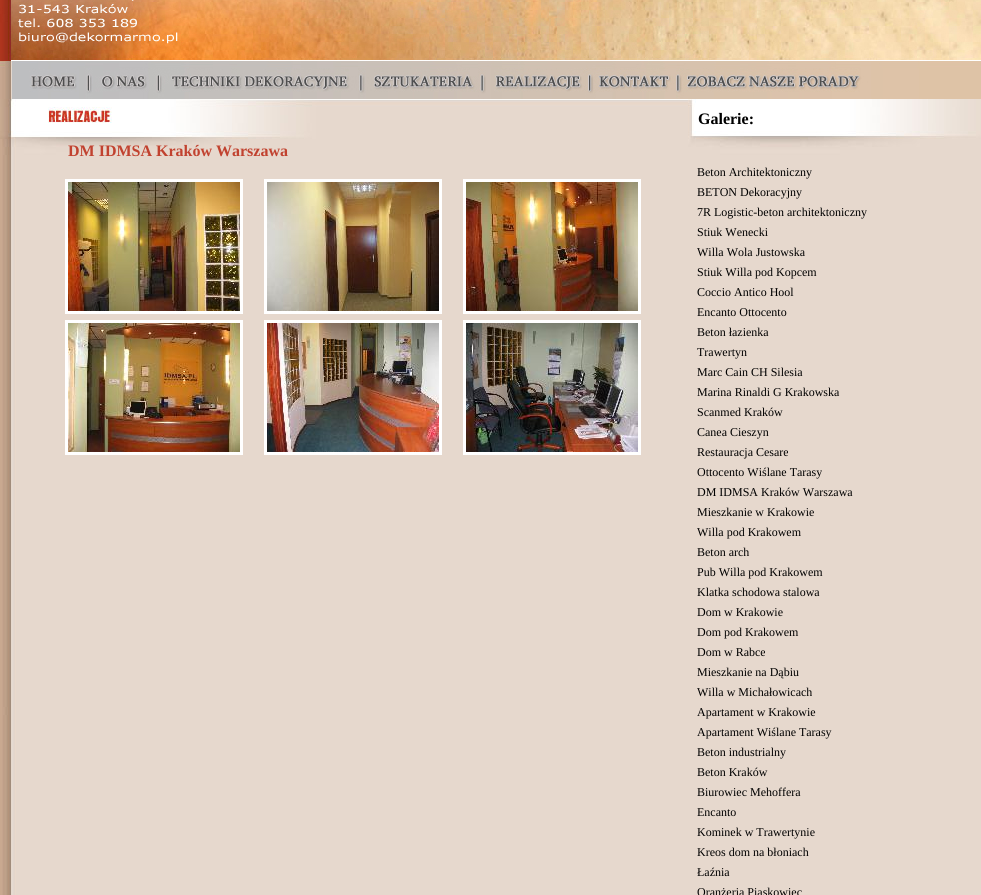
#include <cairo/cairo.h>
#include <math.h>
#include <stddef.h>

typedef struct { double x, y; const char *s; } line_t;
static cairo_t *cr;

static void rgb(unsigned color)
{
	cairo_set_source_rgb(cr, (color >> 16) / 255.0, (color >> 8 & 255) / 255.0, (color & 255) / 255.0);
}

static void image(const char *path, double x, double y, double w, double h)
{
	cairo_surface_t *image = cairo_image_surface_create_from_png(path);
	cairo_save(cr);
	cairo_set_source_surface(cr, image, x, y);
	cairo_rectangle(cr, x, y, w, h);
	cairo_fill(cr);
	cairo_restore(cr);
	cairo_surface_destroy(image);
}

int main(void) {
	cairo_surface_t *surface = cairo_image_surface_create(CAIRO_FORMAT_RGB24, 981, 895);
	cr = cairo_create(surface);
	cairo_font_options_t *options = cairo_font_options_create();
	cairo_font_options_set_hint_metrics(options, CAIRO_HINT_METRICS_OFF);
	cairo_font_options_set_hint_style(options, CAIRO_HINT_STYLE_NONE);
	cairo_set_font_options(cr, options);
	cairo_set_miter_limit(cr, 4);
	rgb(0xffffff);
	cairo_paint(cr);
	image("img/1.png", 0, 139, 2, 756);
	image("img/2.png", 0, 0, 981, 60);
	image("img/3.png", 0, 60, 5, 39);
	image("img/4.png", 5, 60, 90, 39);
	image("img/5.png", 95, 60, 70, 39);
	image("img/6.png", 165, 60, 193, 39);
	image("img/7.png", 358, 60, 128, 39);
	image("img/8.png", 486, 60, 110, 39);
	image("img/9.png", 596, 60, 88, 39);
	image("img/10.png", 684, 60, 187, 39);
	image("img/11.png", 871, 60, 110, 39);
	image("img/12.png", 0, 99, 981, 40);
	image("img/13.png", 2, 139, 979, 756);
	cairo_rectangle(cr, 66.5, 180.5, 175, 132);
	rgb(0xffffff);
	cairo_set_line_width(cr, 3);
	cairo_stroke(cr);
	image("img/14.png", 68, 182, 172, 129);
	cairo_rectangle(cr, 265.5, 180.5, 175, 132);
	cairo_stroke(cr);
	image("img/15.png", 267, 182, 172, 129);
	cairo_rectangle(cr, 464.5, 180.5, 175, 132);
	cairo_stroke(cr);
	image("img/16.png", 466, 182, 172, 129);
	cairo_rectangle(cr, 66.5, 321.5, 175, 132);
	cairo_stroke(cr);
	image("img/17.png", 68, 323, 172, 129);
	cairo_rectangle(cr, 265.5, 321.5, 175, 132);
	cairo_stroke(cr);
	image("img/18.png", 267, 323, 172, 129);
	cairo_rectangle(cr, 464.5, 321.5, 175, 132);
	cairo_stroke(cr);
	image("img/19.png", 466, 323, 172, 129);
	cairo_select_font_face(cr, "Liberation Serif", CAIRO_FONT_SLANT_NORMAL, CAIRO_FONT_WEIGHT_BOLD);
	cairo_set_font_size(cr, 16);
	rgb(0x000000);
	cairo_move_to(cr, 698, 124);
	cairo_show_text(cr, "Galerie:");
	rgb(0xc1422f);
	cairo_move_to(cr, 68, 156);
	cairo_show_text(cr, "DM IDMSA Kraków Warszawa");
	cairo_select_font_face(cr, "Liberation Serif", CAIRO_FONT_SLANT_NORMAL, CAIRO_FONT_WEIGHT_NORMAL);
	cairo_set_font_size(cr, 12);
	rgb(0x000000);
	{
		static const line_t items[] = {
			{697, 176, "Beton Architektoniczny"},
			{697, 196, "BETON Dekoracyjny"},
			{697, 216, "7R Logistic-beton architektoniczny"},
			{697, 236, "Stiuk Wenecki"},
			{697, 256, "Willa Wola Justowska"},
			{697, 276, "Stiuk Willa pod Kopcem"},
			{697, 296, "Coccio Antico Hool"},
			{697, 316, "Encanto Ottocento"},
			{697, 336, "Beton łazienka"},
			{697, 356, "Trawertyn"},
			{697, 376, "Marc Cain CH Silesia"},
			{697, 396, "Marina Rinaldi G Krakowska"},
			{697, 416, "Scanmed Kraków"},
			{697, 436, "Canea Cieszyn"},
			{697, 456, "Restauracja Cesare"},
			{697, 476, "Ottocento Wiślane Tarasy"},
			{697, 496, "DM IDMSA Kraków Warszawa"},
			{697, 516, "Mieszkanie w Krakowie"},
			{697, 536, "Willa pod Krakowem"},
			{697, 556, "Beton arch"},
			{697, 576, "Pub Willa pod Krakowem"},
			{697, 596, "Klatka schodowa stalowa"},
			{697, 616, "Dom w Krakowie"},
			{697, 636, "Dom pod Krakowem"},
			{697, 656, "Dom w Rabce"},
			{697, 676, "Mieszkanie na Dąbiu"},
			{697, 696, "Willa w Michałowicach"},
			{697, 716, "Apartament w Krakowie"},
			{697, 736, "Apartament Wiślane Tarasy"},
			{697, 756, "Beton industrialny"},
			{697, 776, "Beton Kraków"},
			{697, 796, "Biurowiec Mehoffera"},
			{697, 816, "Encanto"},
			{697, 836, "Kominek w Trawertynie"},
			{697, 856, "Kreos dom na błoniach"},
			{697, 876, "Łaźnia"},
			{697, 896, "Oranżeria Piaskowiec"},
		};
		for (size_t i = 0; i < sizeof items / sizeof *items; i++) {
			cairo_move_to(cr, items[i].x, items[i].y);
			cairo_show_text(cr, items[i].s);
		}
	}
	cairo_surface_write_to_png(surface, "page.png");
	cairo_font_options_destroy(options);
	cairo_destroy(cr);
	cairo_surface_destroy(surface);
	return 0;
}
